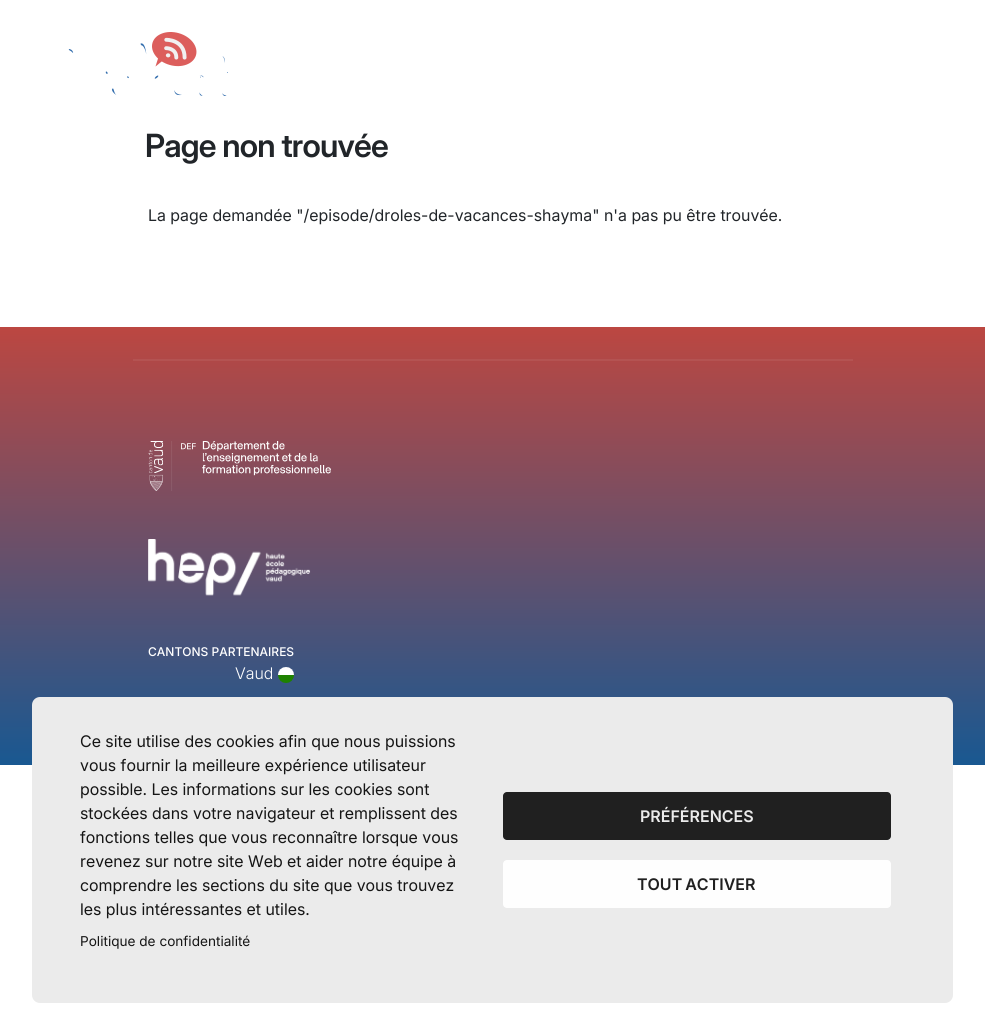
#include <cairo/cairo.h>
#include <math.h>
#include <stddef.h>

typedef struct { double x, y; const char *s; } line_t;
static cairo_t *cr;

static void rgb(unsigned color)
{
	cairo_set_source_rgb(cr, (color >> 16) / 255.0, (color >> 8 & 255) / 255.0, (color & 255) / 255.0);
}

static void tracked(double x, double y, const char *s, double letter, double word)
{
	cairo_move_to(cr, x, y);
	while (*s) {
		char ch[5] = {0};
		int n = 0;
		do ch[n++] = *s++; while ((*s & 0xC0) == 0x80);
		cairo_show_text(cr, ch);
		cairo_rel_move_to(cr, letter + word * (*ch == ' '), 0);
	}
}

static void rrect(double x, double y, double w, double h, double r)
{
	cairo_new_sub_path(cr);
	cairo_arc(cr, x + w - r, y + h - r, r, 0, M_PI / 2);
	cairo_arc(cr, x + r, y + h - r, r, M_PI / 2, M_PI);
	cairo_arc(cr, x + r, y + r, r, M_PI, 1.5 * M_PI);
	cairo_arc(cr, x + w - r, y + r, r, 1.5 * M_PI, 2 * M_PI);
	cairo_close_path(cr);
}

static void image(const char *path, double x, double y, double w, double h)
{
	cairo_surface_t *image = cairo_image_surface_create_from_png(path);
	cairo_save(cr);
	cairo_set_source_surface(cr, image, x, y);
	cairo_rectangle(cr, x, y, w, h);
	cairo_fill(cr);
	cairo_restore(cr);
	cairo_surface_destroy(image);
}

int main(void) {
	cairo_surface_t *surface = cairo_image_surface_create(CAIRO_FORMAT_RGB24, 985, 1035);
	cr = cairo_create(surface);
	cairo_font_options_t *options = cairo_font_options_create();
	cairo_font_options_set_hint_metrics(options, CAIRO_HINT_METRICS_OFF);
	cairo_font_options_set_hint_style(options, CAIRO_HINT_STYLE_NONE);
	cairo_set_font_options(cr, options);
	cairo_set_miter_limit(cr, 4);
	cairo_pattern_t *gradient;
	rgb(0xffffff);
	cairo_paint(cr);
	image("img/1.png", 68, 32, 160, 64);
	gradient = cairo_pattern_create_linear(493, 327, 493, 765);
	cairo_pattern_add_color_stop_rgba(gradient, 0, 0.737, 0.278, 0.255, 1);
	cairo_pattern_add_color_stop_rgba(gradient, 1, 0.098, 0.345, 0.569, 1);
	cairo_set_source(cr, gradient);
	cairo_pattern_destroy(gradient);
	cairo_rectangle(cr, 0, 327, 985, 438);
	cairo_fill(cr);
	rgb(0xb45352);
	cairo_rectangle(cr, 133, 359, 720, 2);
	cairo_fill(cr);
	image("img/2.png", 148, 441, 183, 50);
	image("img/3.png", 148, 539, 163, 57);
	image("img/4.png", 278, 667, 16, 16);
	rgb(0xebebeb);
	rrect(32, 697, 921, 306, 8);
	cairo_fill(cr);
	rgb(0x202020);
	rrect(503, 792, 388, 48, 4);
	cairo_fill(cr);
	rgb(0xfefefe);
	rrect(503, 860, 388, 48, 4);
	cairo_fill(cr);
	cairo_select_font_face(cr, "Inter SemiBold", CAIRO_FONT_SLANT_NORMAL, CAIRO_FONT_WEIGHT_NORMAL);
	cairo_set_font_size(cr, 32);
	rgb(0x212529);
	tracked(145, 157, "Page non trouvée", -0.75, 0);
	cairo_select_font_face(cr, "Inter", CAIRO_FONT_SLANT_NORMAL, CAIRO_FONT_WEIGHT_NORMAL);
	cairo_set_font_size(cr, 16);
	cairo_move_to(cr, 148, 221);
	cairo_show_text(cr, "La page demandée \"/episode/droles-de-vacances-shayma\" n'a pas pu être trouvée.");
	cairo_select_font_face(cr, "Inter Medium", CAIRO_FONT_SLANT_NORMAL, CAIRO_FONT_WEIGHT_NORMAL);
	cairo_set_font_size(cr, 12);
	rgb(0xffffff);
	cairo_move_to(cr, 148, 656);
	cairo_show_text(cr, "CANTONS PARTENAIRES");
	cairo_select_font_face(cr, "Inter Light", CAIRO_FONT_SLANT_NORMAL, CAIRO_FONT_WEIGHT_NORMAL);
	cairo_set_font_size(cr, 16);
	cairo_move_to(cr, 235, 679);
	cairo_show_text(cr, "Vaud");
	cairo_select_font_face(cr, "Inter", CAIRO_FONT_SLANT_NORMAL, CAIRO_FONT_WEIGHT_NORMAL);
	rgb(0x151515);
	{
		static const line_t items[] = {
			{80, 747, "Ce site utilise des cookies afin que nous puissions"},
			{80, 771, "vous fournir la meilleure expérience utilisateur"},
			{80, 795, "possible. Les informations sur les cookies sont"},
			{80, 819, "stockées dans votre navigateur et remplissent des"},
			{80, 843, "fonctions telles que vous reconnaître lorsque vous"},
			{80, 867, "revenez sur notre site Web et aider notre équipe à"},
			{80, 891, "comprendre les sections du site que vous trouvez"},
			{80, 915, "les plus intéressantes et utiles."},
		};
		for (size_t i = 0; i < sizeof items / sizeof *items; i++) {
			cairo_move_to(cr, items[i].x, items[i].y);
			cairo_show_text(cr, items[i].s);
		}
	}
	cairo_select_font_face(cr, "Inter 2", CAIRO_FONT_SLANT_NORMAL, CAIRO_FONT_WEIGHT_NORMAL);
	cairo_set_font_size(cr, 13.6);
	cairo_move_to(cr, 80, 946);
	cairo_show_text(cr, "Politique de confidentialité");
	cairo_select_font_face(cr, "Inter 2 SemiBold", CAIRO_FONT_SLANT_NORMAL, CAIRO_FONT_WEIGHT_NORMAL);
	cairo_set_font_size(cr, 16);
	rgb(0xebebeb);
	cairo_move_to(cr, 640, 822);
	cairo_show_text(cr, "PRÉFÉRENCES");
	rgb(0x202020);
	tracked(637, 890, "TOUT ACTIVER", 0, -1);
	cairo_surface_write_to_png(surface, "page.png");
	cairo_font_options_destroy(options);
	cairo_destroy(cr);
	cairo_surface_destroy(surface);
	return 0;
}
